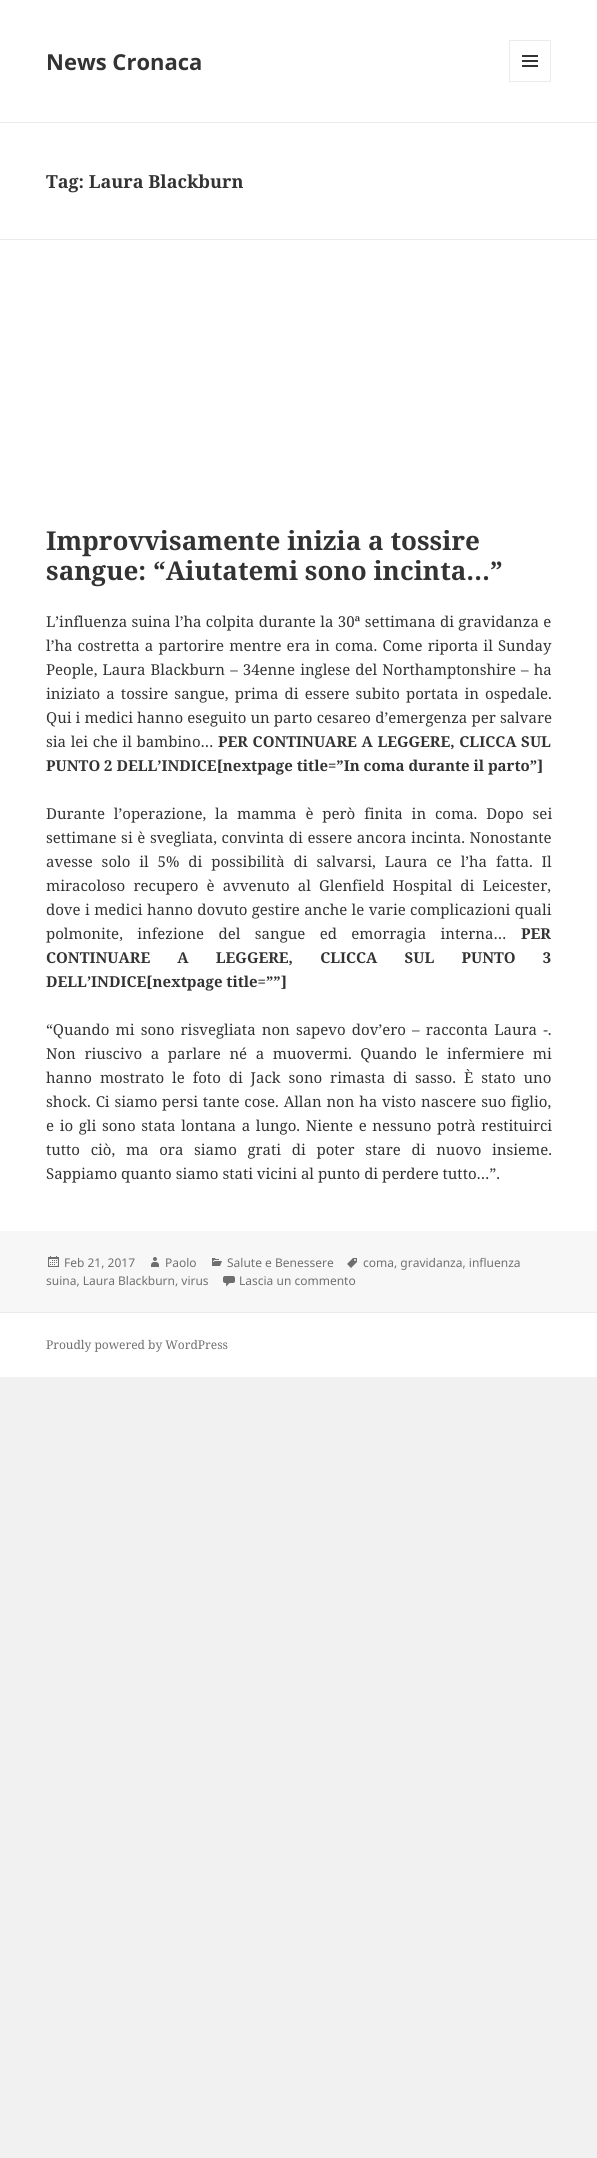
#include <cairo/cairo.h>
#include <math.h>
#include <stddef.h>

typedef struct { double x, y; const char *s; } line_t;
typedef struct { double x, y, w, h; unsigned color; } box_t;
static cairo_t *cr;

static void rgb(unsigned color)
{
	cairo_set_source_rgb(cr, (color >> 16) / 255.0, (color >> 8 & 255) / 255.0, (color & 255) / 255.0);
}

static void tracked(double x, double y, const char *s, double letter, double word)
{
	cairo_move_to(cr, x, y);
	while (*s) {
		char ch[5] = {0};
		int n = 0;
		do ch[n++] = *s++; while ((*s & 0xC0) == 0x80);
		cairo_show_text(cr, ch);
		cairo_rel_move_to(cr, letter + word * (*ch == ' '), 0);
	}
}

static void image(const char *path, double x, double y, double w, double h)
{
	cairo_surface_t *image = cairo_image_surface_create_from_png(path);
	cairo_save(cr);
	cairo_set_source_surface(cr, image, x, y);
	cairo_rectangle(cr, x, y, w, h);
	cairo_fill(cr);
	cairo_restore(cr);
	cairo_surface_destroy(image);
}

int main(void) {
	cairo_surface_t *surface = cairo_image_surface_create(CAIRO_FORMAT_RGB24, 597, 2158);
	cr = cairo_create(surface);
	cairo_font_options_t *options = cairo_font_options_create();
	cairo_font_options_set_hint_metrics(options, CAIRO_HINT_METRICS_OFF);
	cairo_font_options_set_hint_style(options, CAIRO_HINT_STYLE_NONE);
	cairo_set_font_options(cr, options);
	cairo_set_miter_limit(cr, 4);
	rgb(0xf1f1f1);
	cairo_paint(cr);
	rgb(0xffffff);
	cairo_rectangle(cr, 0, 0, 597, 122);
	cairo_fill(cr);
	rgb(0xebebeb);
	cairo_rectangle(cr, 0, 122, 597, 1);
	cairo_fill(cr);
	cairo_rectangle(cr, 509.5, 40.5, 41, 41);
	cairo_set_line_width(cr, 1);
	cairo_stroke(cr);
	image("img/1.png", 522, 55, 16, 12);
	{
		static const box_t items[] = {
			{0, 123, 597, 116, 0xffffff},
			{0, 239, 597, 1, 0xebebeb},
			{0, 240, 597, 991, 0xffffff},
			{0, 1231, 597, 81, 0xf7f7f7},
		};
		for (size_t i = 0; i < sizeof items / sizeof *items; i++) {
			rgb(items[i].color);
			cairo_rectangle(cr, items[i].x, items[i].y, items[i].w, items[i].h);
			cairo_fill(cr);
		}
	}
	image("img/2.png", 347, 1258, 10, 10);
	image("img/3.png", 48, 1256, 11, 11);
	image("img/4.png", 151, 1257, 8, 10);
	image("img/5.png", 212, 1258, 10, 8);
	image("img/6.png", 223, 1276, 12, 11);
	rgb(0xffffff);
	cairo_rectangle(cr, 0, 1313, 597, 64);
	cairo_fill(cr);
	rgb(0xebebeb);
	cairo_rectangle(cr, 0, 1312, 597, 1);
	cairo_fill(cr);
	cairo_select_font_face(cr, "Noto Sans", CAIRO_FONT_SLANT_NORMAL, CAIRO_FONT_WEIGHT_BOLD);
	cairo_set_font_size(cr, 22);
	rgb(0x333333);
	cairo_move_to(cr, 46, 70);
	cairo_show_text(cr, "News Cronaca");
	cairo_select_font_face(cr, "Noto Serif", CAIRO_FONT_SLANT_NORMAL, CAIRO_FONT_WEIGHT_BOLD);
	cairo_set_font_size(cr, 18);
	cairo_move_to(cr, 46, 188);
	cairo_show_text(cr, "Tag: Laura Blackburn");
	cairo_set_font_size(cr, 26);
	cairo_move_to(cr, 46, 550);
	cairo_show_text(cr, "Improvvisamente inizia a tossire");
	cairo_move_to(cr, 46, 580);
	cairo_show_text(cr, "sangue: “Aiutatemi sono incinta…”");
	cairo_select_font_face(cr, "Noto Serif", CAIRO_FONT_SLANT_NORMAL, CAIRO_FONT_WEIGHT_NORMAL);
	cairo_set_font_size(cr, 15);
	tracked(46, 627, "L’influenza suina l’ha colpita durante la 30ª settimana di gravidanza e", 0, 0.5);
	tracked(46, 651, "l’ha costretta a partorire mentre era in coma. Come riporta il Sunday", 0, 1.25);
	tracked(46, 675, "People, Laura Blackburn – 34enne inglese del Northamptonshire – ha", 0, 1.25);
	tracked(46, 699, "iniziato a tossire sangue, prima di essere subito portata in ospedale.", 0, 2.25);
	tracked(46, 723, "Qui i medici hanno eseguito un parto cesareo d’emergenza per salvare", 0, 0.25);
	tracked(46, 747, "sia lei che il bambino…", 0, 0.75);
	cairo_select_font_face(cr, "Noto Serif", CAIRO_FONT_SLANT_NORMAL, CAIRO_FONT_WEIGHT_BOLD);
	tracked(218, 747, "PER CONTINUARE A LEGGERE, CLICCA SUL", 0, 0.75);
	cairo_move_to(cr, 46, 771);
	cairo_show_text(cr, "PUNTO 2 DELL’INDICE[nextpage title=”In coma durante il parto”]");
	cairo_select_font_face(cr, "Noto Serif", CAIRO_FONT_SLANT_NORMAL, CAIRO_FONT_WEIGHT_NORMAL);
	tracked(46, 819, "Durante l’operazione, la mamma è però finita in coma. Dopo sei", 0, 5);
	tracked(46, 843, "settimane si è svegliata, convinta di essere ancora incinta. Nonostante", 0, 0.75);
	tracked(46, 867, "avesse solo il 5% di possibilità di salvarsi, Laura ce l’ha fatta. Il", 0, 5);
	tracked(46, 891, "miracoloso recupero è avvenuto al Glenfield Hospital di Leicester,", 0, 4.25);
	tracked(46, 915, "dove i medici hanno dovuto gestire anche le varie complicazioni quali", 0, 0.5);
	tracked(46, 939, "polmonite, infezione del sangue ed emorragia interna…", 0, 10.5);
	cairo_select_font_face(cr, "Noto Serif", CAIRO_FONT_SLANT_NORMAL, CAIRO_FONT_WEIGHT_BOLD);
	cairo_move_to(cr, 521, 939);
	cairo_show_text(cr, "PER");
	tracked(46, 963, "CONTINUARE A LEGGERE, CLICCA SUL PUNTO 3", 0, 23.25);
	cairo_move_to(cr, 46, 987);
	cairo_show_text(cr, "DELL’INDICE[nextpage title=””]");
	cairo_select_font_face(cr, "Noto Serif", CAIRO_FONT_SLANT_NORMAL, CAIRO_FONT_WEIGHT_NORMAL);
	tracked(46, 1035, "“Quando mi sono risvegliata non sapevo dov’ero – racconta Laura -.", 0, 2.25);
	tracked(46, 1059, "Non riuscivo a parlare né a muovermi. Quando le infermiere mi", 0, 4.75);
	tracked(46, 1083, "hanno mostrato le foto di Jack sono rimasta di sasso. È stato uno", 0, 4);
	tracked(46, 1107, "shock. Ci siamo persi tante cose. Allan non ha visto nascere suo figlio,", 0, 0.9);
	tracked(46, 1131, "e io gli sono stata lontana a lungo. Niente e nessuno potrà restituirci", 0, 1.75);
	tracked(46, 1155, "tutto ciò, ma ora siamo grati di poter stare di nuovo insieme.", 0, 6.75);
	cairo_move_to(cr, 46, 1179);
	cairo_show_text(cr, "Sappiamo quanto siamo stati vicini al punto di perdere tutto…”.");
	cairo_select_font_face(cr, "Noto Sans", CAIRO_FONT_SLANT_NORMAL, CAIRO_FONT_WEIGHT_NORMAL);
	cairo_set_font_size(cr, 12);
	rgb(0x707070);
	{
		static const line_t items[] = {
			{363, 1267, "coma, gravidanza, influenza"},
			{46, 1285, "suina, Laura Blackburn, virus"},
			{64, 1267, "Feb 21, 2017"},
			{165, 1267, "Paolo"},
			{227, 1267, "Salute e Benessere"},
			{239, 1285, "Lascia un commento"},
		};
		for (size_t i = 0; i < sizeof items / sizeof *items; i++) {
			cairo_move_to(cr, items[i].x, items[i].y);
			cairo_show_text(cr, items[i].s);
		}
	}
	cairo_select_font_face(cr, "Noto Serif", CAIRO_FONT_SLANT_NORMAL, CAIRO_FONT_WEIGHT_NORMAL);
	cairo_move_to(cr, 46, 1349);
	cairo_show_text(cr, "Proudly powered by WordPress");
	cairo_surface_write_to_png(surface, "page.png");
	cairo_font_options_destroy(options);
	cairo_destroy(cr);
	cairo_surface_destroy(surface);
	return 0;
}
